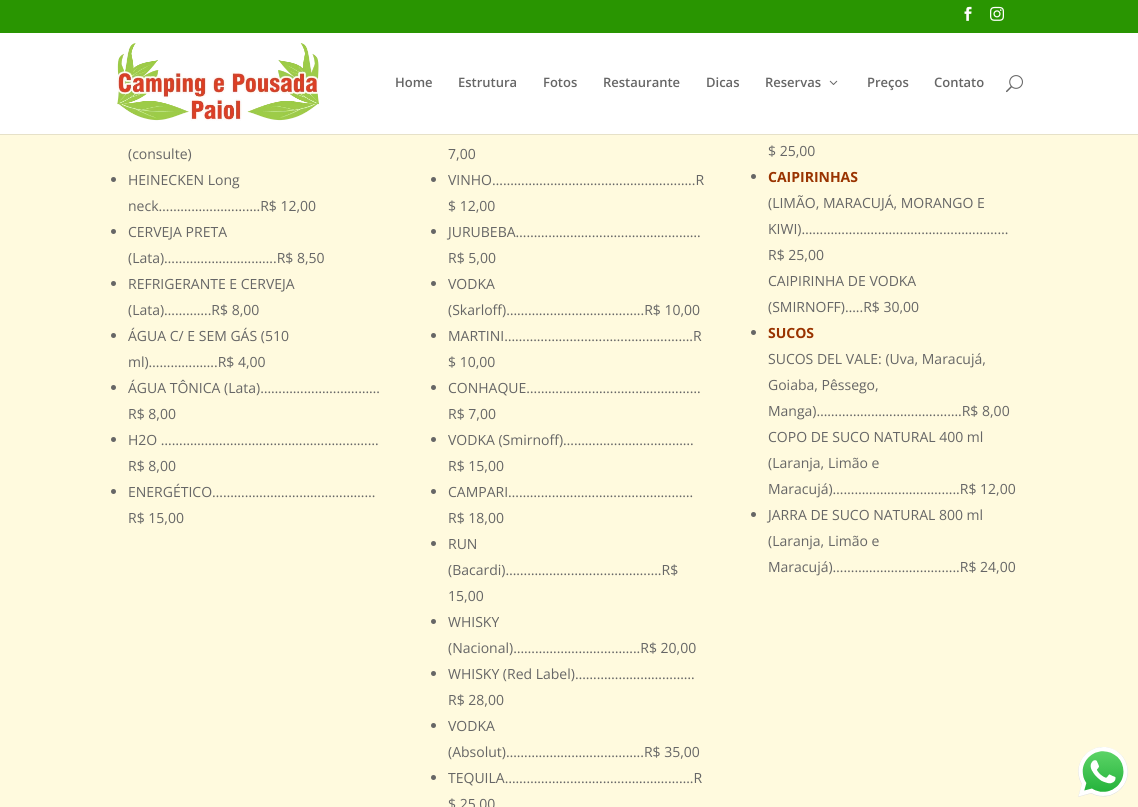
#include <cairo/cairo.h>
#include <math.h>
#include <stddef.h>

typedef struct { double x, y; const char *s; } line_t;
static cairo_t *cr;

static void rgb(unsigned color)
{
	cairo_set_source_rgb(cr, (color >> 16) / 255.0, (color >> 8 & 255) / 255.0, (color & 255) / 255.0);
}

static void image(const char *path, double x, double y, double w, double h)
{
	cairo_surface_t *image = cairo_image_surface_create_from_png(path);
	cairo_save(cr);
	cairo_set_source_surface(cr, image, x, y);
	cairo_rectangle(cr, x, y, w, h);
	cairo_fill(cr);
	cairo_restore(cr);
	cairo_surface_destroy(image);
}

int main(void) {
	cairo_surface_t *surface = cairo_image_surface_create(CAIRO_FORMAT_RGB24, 1138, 807);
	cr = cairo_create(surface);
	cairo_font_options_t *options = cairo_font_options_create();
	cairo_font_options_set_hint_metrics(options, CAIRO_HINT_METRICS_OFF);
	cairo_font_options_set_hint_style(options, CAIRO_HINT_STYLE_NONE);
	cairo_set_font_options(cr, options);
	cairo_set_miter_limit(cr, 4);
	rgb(0xfffade);
	cairo_paint(cr);
	rgb(0x299501);
	cairo_rectangle(cr, 0, 0, 1138, 33);
	cairo_fill(cr);
	image("img/1.png", 964, 6, 8, 15);
	image("img/2.png", 990, 6, 14, 15);
	cairo_set_source_rgba(cr, 0, 0, 0, 0.1);
	cairo_rectangle(cr, 0, 134, 1138, 1);
	cairo_fill(cr);
	rgb(0xffffff);
	cairo_rectangle(cr, 0, 33, 1138, 101);
	cairo_fill(cr);
	image("img/3.png", 117, 43, 202, 78);
	image("img/4.png", 829, 80, 9, 5);
	image("img/5.png", 1006, 75, 17, 18);
	rgb(0x666666);
	cairo_arc(cr, 113.5, 179.5, 2.5, 0, 2 * M_PI);
	cairo_fill(cr);
	cairo_arc(cr, 113.5, 231.5, 2.5, 0, 2 * M_PI);
	cairo_fill(cr);
	cairo_arc(cr, 113.5, 283.5, 2.5, 0, 2 * M_PI);
	cairo_fill(cr);
	cairo_arc(cr, 113.5, 335.5, 2.5, 0, 2 * M_PI);
	cairo_fill(cr);
	cairo_arc(cr, 113.5, 387.5, 2.5, 0, 2 * M_PI);
	cairo_fill(cr);
	cairo_arc(cr, 113.5, 439.5, 2.5, 0, 2 * M_PI);
	cairo_fill(cr);
	cairo_arc(cr, 113.5, 491.5, 2.5, 0, 2 * M_PI);
	cairo_fill(cr);
	cairo_arc(cr, 433.5, 179.5, 2.5, 0, 2 * M_PI);
	cairo_fill(cr);
	cairo_arc(cr, 433.5, 231.5, 2.5, 0, 2 * M_PI);
	cairo_fill(cr);
	cairo_arc(cr, 433.5, 283.5, 2.5, 0, 2 * M_PI);
	cairo_fill(cr);
	cairo_arc(cr, 433.5, 335.5, 2.5, 0, 2 * M_PI);
	cairo_fill(cr);
	cairo_arc(cr, 433.5, 387.5, 2.5, 0, 2 * M_PI);
	cairo_fill(cr);
	cairo_arc(cr, 433.5, 439.5, 2.5, 0, 2 * M_PI);
	cairo_fill(cr);
	cairo_arc(cr, 433.5, 491.5, 2.5, 0, 2 * M_PI);
	cairo_fill(cr);
	cairo_arc(cr, 433.5, 543.5, 2.5, 0, 2 * M_PI);
	cairo_fill(cr);
	cairo_arc(cr, 433.5, 621.5, 2.5, 0, 2 * M_PI);
	cairo_fill(cr);
	cairo_arc(cr, 433.5, 673.5, 2.5, 0, 2 * M_PI);
	cairo_fill(cr);
	cairo_arc(cr, 433.5, 725.5, 2.5, 0, 2 * M_PI);
	cairo_fill(cr);
	cairo_arc(cr, 433.5, 777.5, 2.5, 0, 2 * M_PI);
	cairo_fill(cr);
	cairo_arc(cr, 753.5, 176.5, 2.5, 0, 2 * M_PI);
	cairo_fill(cr);
	cairo_arc(cr, 753.5, 332.5, 2.5, 0, 2 * M_PI);
	cairo_fill(cr);
	cairo_arc(cr, 753.5, 514.5, 2.5, 0, 2 * M_PI);
	cairo_fill(cr);
	image("img/6.png", 1078, 747, 50, 50);
	cairo_select_font_face(cr, "Open Sans SemiBold", CAIRO_FONT_SLANT_NORMAL, CAIRO_FONT_WEIGHT_NORMAL);
	cairo_set_font_size(cr, 13);
	{
		static const line_t items[] = {
			{395, 87, "Home"},
			{458, 87, "Estrutura"},
			{543, 87, "Fotos"},
			{603, 87, "Restaurante"},
			{706, 87, "Dicas"},
			{765, 87, "Reservas"},
			{867, 87, "Preços"},
			{934, 87, "Contato"},
		};
		for (size_t i = 0; i < sizeof items / sizeof *items; i++) {
			cairo_move_to(cr, items[i].x, items[i].y);
			cairo_show_text(cr, items[i].s);
		}
	}
	cairo_select_font_face(cr, "Open Sans", CAIRO_FONT_SLANT_NORMAL, CAIRO_FONT_WEIGHT_NORMAL);
	cairo_set_font_size(cr, 14);
	{
		static const line_t items[] = {
			{128, 159, "(consulte)"},
			{128, 185, "HEINECKEN Long"},
			{128, 211, "neck……………………….R$ 12,00"},
			{128, 237, "CERVEJA PRETA"},
			{128, 263, "(Lata)………………………….R$ 8,50"},
			{128, 289, "REFRIGERANTE E CERVEJA"},
			{128, 315, "(Lata)………….R$ 8,00"},
			{128, 341, "ÁGUA C/ E SEM GÁS (510"},
			{128, 367, "ml)……………….R$ 4,00"},
			{128, 393, "ÁGUA TÔNICA (Lata)……………………………"},
			{128, 419, "R$ 8,00"},
			{128, 445, "H2O ……………………………………………………"},
			{128, 471, "R$ 8,00"},
			{128, 497, "ENERGÉTICO………………………………………"},
			{128, 523, "R$ 15,00"},
			{448, 159, "7,00"},
			{448, 185, "VINHO………………………………………………..R"},
			{448, 211, "$ 12,00"},
			{448, 237, "JURUBEBA……………………………………………"},
			{448, 263, "R$ 5,00"},
			{448, 289, "VODKA"},
			{448, 315, "(Skarloff)………………………………..R$ 10,00"},
			{448, 341, "MARTINI…………………………………………….R"},
			{448, 367, "$ 10,00"},
			{448, 393, "CONHAQUE…………………………………………"},
			{448, 419, "R$ 7,00"},
			{448, 445, "VODKA (Smirnoff)………………………………"},
			{448, 471, "R$ 15,00"},
			{448, 497, "CAMPARI……………………………………………"},
			{448, 523, "R$ 18,00"},
			{448, 549, "RUN"},
			{448, 575, "(Bacardi)…………………………………….R$"},
			{448, 601, "15,00"},
			{448, 627, "WHISKY"},
			{448, 653, "(Nacional)……………………………..R$ 20,00"},
			{448, 679, "WHISKY (Red Label)……………………………"},
			{448, 705, "R$ 28,00"},
			{448, 731, "VODKA"},
			{448, 757, "(Absolut)………………………………..R$ 35,00"},
			{448, 783, "TEQUILA…………………………………………….R"},
			{448, 809, "$ 25,00"},
			{768, 156, "$ 25,00"},
		};
		for (size_t i = 0; i < sizeof items / sizeof *items; i++) {
			cairo_move_to(cr, items[i].x, items[i].y);
			cairo_show_text(cr, items[i].s);
		}
	}
	cairo_select_font_face(cr, "Open Sans", CAIRO_FONT_SLANT_NORMAL, CAIRO_FONT_WEIGHT_BOLD);
	rgb(0x993300);
	cairo_move_to(cr, 768, 182);
	cairo_show_text(cr, "CAIPIRINHAS");
	cairo_select_font_face(cr, "Open Sans", CAIRO_FONT_SLANT_NORMAL, CAIRO_FONT_WEIGHT_NORMAL);
	rgb(0x666666);
	{
		static const line_t items[] = {
			{768, 208, "(LIMÃO, MARACUJÁ, MORANGO E"},
			{768, 234, "KIWI)…………………………………………………"},
			{768, 260, "R$ 25,00"},
			{768, 286, "CAIPIRINHA DE VODKA"},
			{768, 312, "(SMIRNOFF)…..R$ 30,00"},
		};
		for (size_t i = 0; i < sizeof items / sizeof *items; i++) {
			cairo_move_to(cr, items[i].x, items[i].y);
			cairo_show_text(cr, items[i].s);
		}
	}
	cairo_select_font_face(cr, "Open Sans", CAIRO_FONT_SLANT_NORMAL, CAIRO_FONT_WEIGHT_BOLD);
	rgb(0x993300);
	cairo_move_to(cr, 768, 338);
	cairo_show_text(cr, "SUCOS");
	cairo_select_font_face(cr, "Open Sans", CAIRO_FONT_SLANT_NORMAL, CAIRO_FONT_WEIGHT_NORMAL);
	rgb(0x666666);
	{
		static const line_t items[] = {
			{768, 364, "SUCOS DEL VALE: (Uva, Maracujá,"},
			{768, 390, "Goiaba, Pêssego,"},
			{768, 416, "Manga)………………………………….R$ 8,00"},
			{768, 442, "COPO DE SUCO NATURAL 400 ml"},
			{768, 468, "(Laranja, Limão e"},
			{768, 494, "Maracujá)……………………………..R$ 12,00"},
			{768, 520, "JARRA DE SUCO NATURAL 800 ml"},
			{768, 546, "(Laranja, Limão e"},
			{768, 572, "Maracujá)……………………………..R$ 24,00"},
		};
		for (size_t i = 0; i < sizeof items / sizeof *items; i++) {
			cairo_move_to(cr, items[i].x, items[i].y);
			cairo_show_text(cr, items[i].s);
		}
	}
	cairo_surface_write_to_png(surface, "page.png");
	cairo_font_options_destroy(options);
	cairo_destroy(cr);
	cairo_surface_destroy(surface);
	return 0;
}
